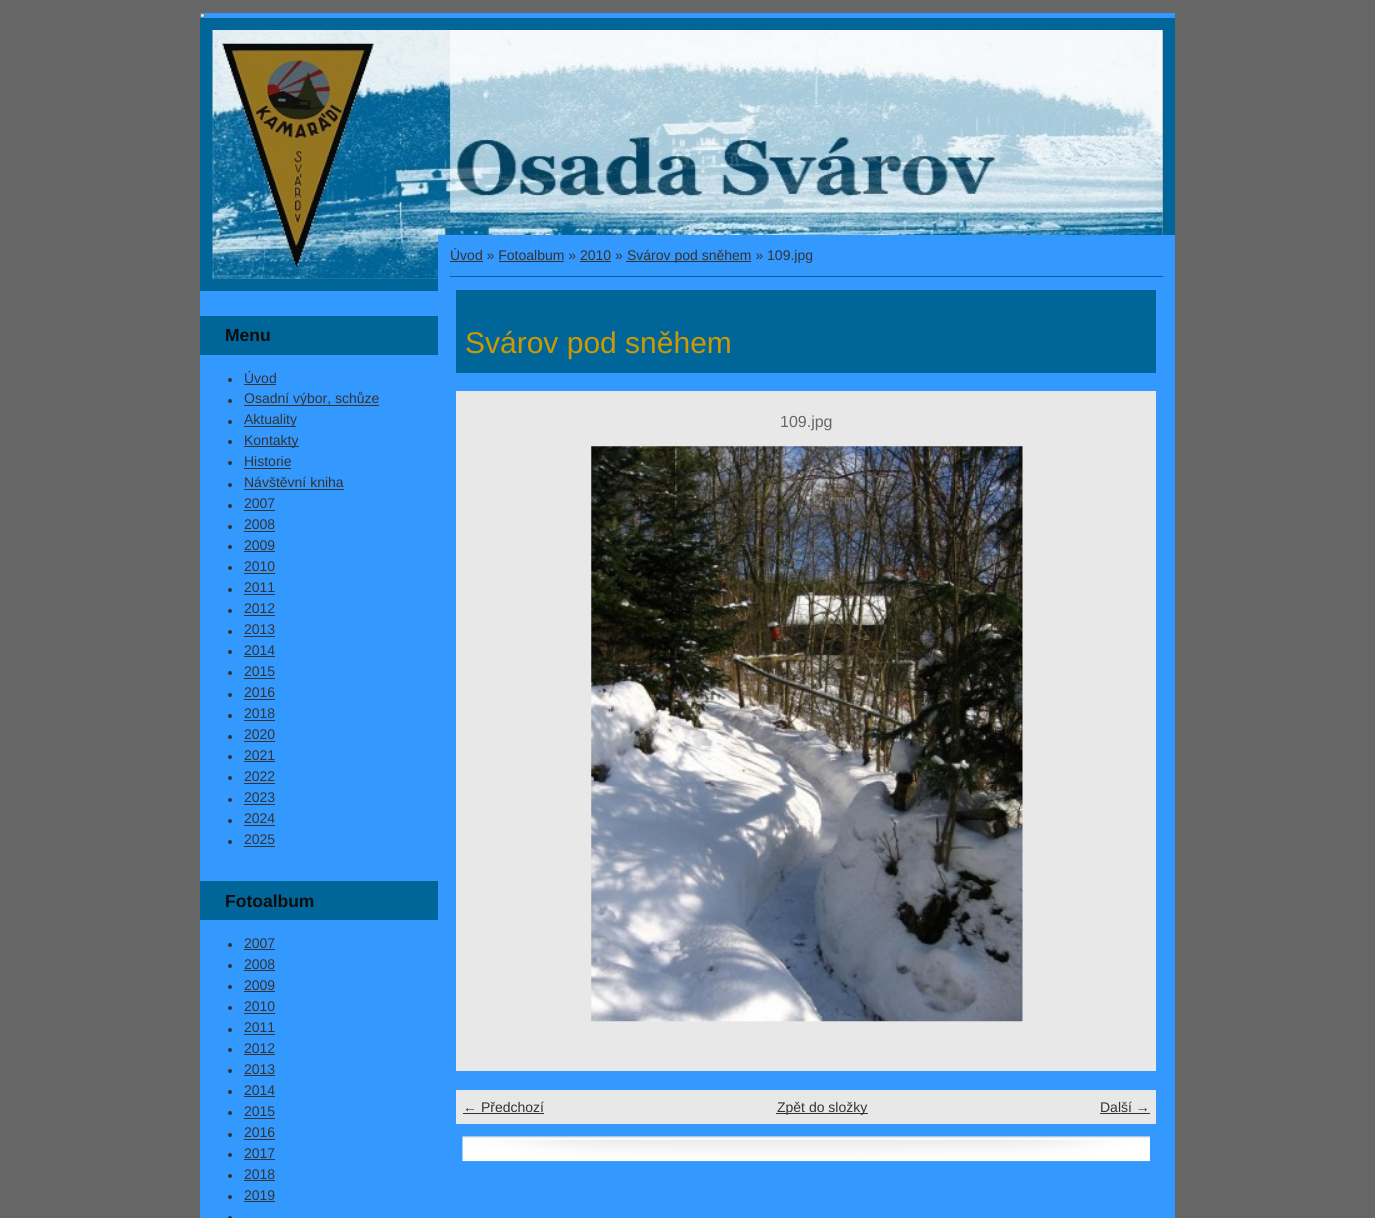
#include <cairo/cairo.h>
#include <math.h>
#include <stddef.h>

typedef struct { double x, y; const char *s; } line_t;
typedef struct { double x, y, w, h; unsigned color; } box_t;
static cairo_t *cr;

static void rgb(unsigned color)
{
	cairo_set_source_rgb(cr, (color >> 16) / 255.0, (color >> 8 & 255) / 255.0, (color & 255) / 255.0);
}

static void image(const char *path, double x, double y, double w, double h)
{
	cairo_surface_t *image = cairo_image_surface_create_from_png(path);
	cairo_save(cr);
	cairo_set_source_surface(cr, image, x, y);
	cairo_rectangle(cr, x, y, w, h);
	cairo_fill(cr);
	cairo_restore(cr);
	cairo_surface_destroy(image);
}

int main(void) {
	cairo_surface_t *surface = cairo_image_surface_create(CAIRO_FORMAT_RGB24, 1375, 1218);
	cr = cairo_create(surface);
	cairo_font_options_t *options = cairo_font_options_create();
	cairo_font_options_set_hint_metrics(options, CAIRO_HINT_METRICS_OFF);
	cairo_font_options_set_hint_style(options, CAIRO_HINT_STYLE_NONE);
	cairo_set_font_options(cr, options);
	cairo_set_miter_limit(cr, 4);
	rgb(0x666666);
	cairo_paint(cr);
	rgb(0x3399ff);
	cairo_rectangle(cr, 200, 13, 975, 1205);
	cairo_fill(cr);
	rgb(0xefefef);
	cairo_arc(cr, 202.5, 15.5, 2, 0, 2 * M_PI);
	cairo_fill_preserve(cr);
	rgb(0x767676);
	cairo_set_line_width(cr, 1);
	cairo_stroke(cr);
	rgb(0x006699);
	cairo_rectangle(cr, 200, 18, 975, 273);
	cairo_fill(cr);
	rgb(0x979797);
	cairo_rectangle(cr, 213, 30, 950, 249);
	cairo_fill(cr);
	image("img/1.png", 212, 30, 951, 249);
	rgb(0x006699);
	cairo_rectangle(cr, 200, 316, 238, 39);
	cairo_fill(cr);
	rgb(0x333333);
	cairo_arc(cr, 230, 380, 2, 0, 2 * M_PI);
	cairo_fill(cr);
	cairo_rectangle(cr, 244, 384, 32, 1);
	cairo_fill(cr);
	cairo_arc(cr, 230, 401, 2, 0, 2 * M_PI);
	cairo_fill(cr);
	cairo_rectangle(cr, 244, 405, 135, 1);
	cairo_fill(cr);
	cairo_arc(cr, 230, 422, 2, 0, 2 * M_PI);
	cairo_fill(cr);
	cairo_rectangle(cr, 244, 426, 52, 1);
	cairo_fill(cr);
	cairo_arc(cr, 230, 442, 2, 0, 2 * M_PI);
	cairo_fill(cr);
	cairo_rectangle(cr, 244, 446, 55, 1);
	cairo_fill(cr);
	cairo_arc(cr, 230, 463, 2, 0, 2 * M_PI);
	cairo_fill(cr);
	cairo_rectangle(cr, 244, 468, 47, 1);
	cairo_fill(cr);
	cairo_arc(cr, 230, 485, 2, 0, 2 * M_PI);
	cairo_fill(cr);
	cairo_rectangle(cr, 244, 489, 100, 1);
	cairo_fill(cr);
	cairo_arc(cr, 230, 506, 2, 0, 2 * M_PI);
	cairo_fill(cr);
	cairo_rectangle(cr, 244, 510, 31, 1);
	cairo_fill(cr);
	cairo_arc(cr, 230, 527, 2, 0, 2 * M_PI);
	cairo_fill(cr);
	cairo_rectangle(cr, 244, 531, 31, 1);
	cairo_fill(cr);
	cairo_arc(cr, 230, 547, 2, 0, 2 * M_PI);
	cairo_fill(cr);
	cairo_rectangle(cr, 244, 551, 31, 1);
	cairo_fill(cr);
	cairo_arc(cr, 230, 568, 2, 0, 2 * M_PI);
	cairo_fill(cr);
	cairo_rectangle(cr, 244, 573, 31, 1);
	cairo_fill(cr);
	cairo_arc(cr, 230, 590, 2, 0, 2 * M_PI);
	cairo_fill(cr);
	cairo_rectangle(cr, 244, 594, 31, 1);
	cairo_fill(cr);
	cairo_arc(cr, 230, 611, 2, 0, 2 * M_PI);
	cairo_fill(cr);
	cairo_rectangle(cr, 244, 615, 31, 1);
	cairo_fill(cr);
	cairo_arc(cr, 230, 632, 2, 0, 2 * M_PI);
	cairo_fill(cr);
	cairo_rectangle(cr, 244, 636, 31, 1);
	cairo_fill(cr);
	cairo_arc(cr, 230, 652, 2, 0, 2 * M_PI);
	cairo_fill(cr);
	cairo_rectangle(cr, 244, 656, 31, 1);
	cairo_fill(cr);
	cairo_arc(cr, 230, 673, 2, 0, 2 * M_PI);
	cairo_fill(cr);
	cairo_rectangle(cr, 244, 678, 31, 1);
	cairo_fill(cr);
	cairo_arc(cr, 230, 695, 2, 0, 2 * M_PI);
	cairo_fill(cr);
	cairo_rectangle(cr, 244, 699, 31, 1);
	cairo_fill(cr);
	cairo_arc(cr, 230, 716, 2, 0, 2 * M_PI);
	cairo_fill(cr);
	cairo_rectangle(cr, 244, 720, 31, 1);
	cairo_fill(cr);
	cairo_arc(cr, 230, 737, 2, 0, 2 * M_PI);
	cairo_fill(cr);
	cairo_rectangle(cr, 244, 741, 31, 1);
	cairo_fill(cr);
	cairo_arc(cr, 230, 757, 2, 0, 2 * M_PI);
	cairo_fill(cr);
	cairo_rectangle(cr, 244, 761, 31, 1);
	cairo_fill(cr);
	cairo_arc(cr, 230, 778, 2, 0, 2 * M_PI);
	cairo_fill(cr);
	cairo_rectangle(cr, 244, 783, 31, 1);
	cairo_fill(cr);
	cairo_arc(cr, 230, 800, 2, 0, 2 * M_PI);
	cairo_fill(cr);
	cairo_rectangle(cr, 244, 804, 31, 1);
	cairo_fill(cr);
	cairo_arc(cr, 230, 821, 2, 0, 2 * M_PI);
	cairo_fill(cr);
	cairo_rectangle(cr, 244, 825, 31, 1);
	cairo_fill(cr);
	cairo_arc(cr, 230, 842, 2, 0, 2 * M_PI);
	cairo_fill(cr);
	cairo_rectangle(cr, 244, 846, 31, 1);
	cairo_fill(cr);
	rgb(0x006699);
	cairo_rectangle(cr, 200, 881, 238, 39);
	cairo_fill(cr);
	rgb(0x333333);
	cairo_arc(cr, 230, 945, 2, 0, 2 * M_PI);
	cairo_fill(cr);
	cairo_rectangle(cr, 244, 949, 31, 1);
	cairo_fill(cr);
	cairo_arc(cr, 230, 966, 2, 0, 2 * M_PI);
	cairo_fill(cr);
	cairo_rectangle(cr, 244, 970, 31, 1);
	cairo_fill(cr);
	cairo_arc(cr, 230, 987, 2, 0, 2 * M_PI);
	cairo_fill(cr);
	cairo_rectangle(cr, 244, 991, 31, 1);
	cairo_fill(cr);
	cairo_arc(cr, 230, 1008, 2, 0, 2 * M_PI);
	cairo_fill(cr);
	cairo_rectangle(cr, 244, 1013, 31, 1);
	cairo_fill(cr);
	cairo_arc(cr, 230, 1030, 2, 0, 2 * M_PI);
	cairo_fill(cr);
	cairo_rectangle(cr, 244, 1034, 31, 1);
	cairo_fill(cr);
	cairo_arc(cr, 230, 1050, 2, 0, 2 * M_PI);
	cairo_fill(cr);
	cairo_rectangle(cr, 244, 1054, 31, 1);
	cairo_fill(cr);
	cairo_arc(cr, 230, 1071, 2, 0, 2 * M_PI);
	cairo_fill(cr);
	cairo_rectangle(cr, 244, 1075, 31, 1);
	cairo_fill(cr);
	cairo_arc(cr, 230, 1092, 2, 0, 2 * M_PI);
	cairo_fill(cr);
	cairo_rectangle(cr, 244, 1096, 31, 1);
	cairo_fill(cr);
	cairo_arc(cr, 230, 1113, 2, 0, 2 * M_PI);
	cairo_fill(cr);
	cairo_rectangle(cr, 244, 1118, 31, 1);
	cairo_fill(cr);
	cairo_arc(cr, 230, 1135, 2, 0, 2 * M_PI);
	cairo_fill(cr);
	cairo_rectangle(cr, 244, 1139, 31, 1);
	cairo_fill(cr);
	cairo_arc(cr, 230, 1155, 2, 0, 2 * M_PI);
	cairo_fill(cr);
	cairo_rectangle(cr, 244, 1159, 31, 1);
	cairo_fill(cr);
	cairo_arc(cr, 230, 1176, 2, 0, 2 * M_PI);
	cairo_fill(cr);
	cairo_rectangle(cr, 244, 1180, 31, 1);
	cairo_fill(cr);
	cairo_arc(cr, 230, 1197, 2, 0, 2 * M_PI);
	cairo_fill(cr);
	cairo_rectangle(cr, 244, 1201, 31, 1);
	cairo_fill(cr);
	cairo_arc(cr, 230, 1218, 2, 0, 2 * M_PI);
	cairo_fill(cr);
	{
		static const box_t items[] = {
			{438, 235, 737, 56, 0x3399ff},
			{450, 276, 713, 1, 0x006699},
			{450, 261, 33, 1, 0x333333},
			{626, 261, 125, 1, 0x333333},
			{499, 261, 65, 1, 0x333333},
			{580, 261, 31, 1, 0x333333},
		};
		for (size_t i = 0; i < sizeof items / sizeof *items; i++) {
			rgb(items[i].color);
			cairo_rectangle(cr, items[i].x, items[i].y, items[i].w, items[i].h);
			cairo_fill(cr);
		}
	}
	image("img/2.png", 462, 1136, 688, 26);
	rgb(0x006699);
	cairo_rectangle(cr, 456, 290, 700, 83);
	cairo_fill(cr);
	rgb(0xe8e8e8);
	cairo_rectangle(cr, 456, 391, 700, 680);
	cairo_fill(cr);
	image("img/3.png", 591, 446, 432, 576);
	{
		static const box_t items[] = {
			{456, 1090, 700, 34, 0xe8e8e8},
			{463, 1113, 81, 1, 0x333333},
			{776, 1113, 92, 1, 0x333333},
			{1100, 1113, 50, 1, 0x333333},
		};
		for (size_t i = 0; i < sizeof items / sizeof *items; i++) {
			rgb(items[i].color);
			cairo_rectangle(cr, items[i].x, items[i].y, items[i].w, items[i].h);
			cairo_fill(cr);
		}
	}
	cairo_select_font_face(cr, "Liberation Sans", CAIRO_FONT_SLANT_NORMAL, CAIRO_FONT_WEIGHT_BOLD);
	cairo_set_font_size(cr, 17.5);
	rgb(0x0d0d0d);
	cairo_move_to(cr, 225, 341);
	cairo_show_text(cr, "Menu");
	cairo_select_font_face(cr, "Liberation Sans", CAIRO_FONT_SLANT_NORMAL, CAIRO_FONT_WEIGHT_NORMAL);
	cairo_set_font_size(cr, 14);
	rgb(0x333333);
	{
		static const line_t items[] = {
			{244, 383, "Úvod"},
			{244, 403, "Osadní výbor, schůze"},
			{244, 424, "Aktuality"},
			{244, 445, "Kontakty"},
			{244, 466, "Historie"},
			{244, 487, "Návštěvní kniha"},
			{244, 508, "2007"},
			{244, 529, "2008"},
			{244, 550, "2009"},
			{244, 571, "2010"},
			{244, 592, "2011"},
			{244, 613, "2012"},
			{244, 634, "2013"},
			{244, 655, "2014"},
			{244, 676, "2015"},
			{244, 697, "2016"},
			{244, 718, "2018"},
			{244, 739, "2020"},
			{244, 760, "2021"},
			{244, 781, "2022"},
			{244, 802, "2023"},
			{244, 823, "2024"},
			{244, 844, "2025"},
		};
		for (size_t i = 0; i < sizeof items / sizeof *items; i++) {
			cairo_move_to(cr, items[i].x, items[i].y);
			cairo_show_text(cr, items[i].s);
		}
	}
	cairo_select_font_face(cr, "Liberation Sans", CAIRO_FONT_SLANT_NORMAL, CAIRO_FONT_WEIGHT_BOLD);
	cairo_set_font_size(cr, 17.5);
	rgb(0x0d0d0d);
	cairo_move_to(cr, 225, 907);
	cairo_show_text(cr, "Fotoalbum");
	cairo_select_font_face(cr, "Liberation Sans", CAIRO_FONT_SLANT_NORMAL, CAIRO_FONT_WEIGHT_NORMAL);
	cairo_set_font_size(cr, 14);
	rgb(0x333333);
	{
		static const line_t items[] = {
			{244, 948, "2007"},
			{244, 969, "2008"},
			{244, 990, "2009"},
			{244, 1011, "2010"},
			{244, 1032, "2011"},
			{244, 1053, "2012"},
			{244, 1074, "2013"},
			{244, 1095, "2014"},
			{244, 1116, "2015"},
			{244, 1137, "2016"},
			{244, 1158, "2017"},
			{244, 1179, "2018"},
			{244, 1200, "2019"},
			{450, 260, "Úvod » Fotoalbum » 2010 »"},
			{627, 260, "Svárov pod sněhem » 109.jpg"},
		};
		for (size_t i = 0; i < sizeof items / sizeof *items; i++) {
			cairo_move_to(cr, items[i].x, items[i].y);
			cairo_show_text(cr, items[i].s);
		}
	}
	cairo_set_font_size(cr, 30);
	rgb(0xcc9900);
	cairo_move_to(cr, 465, 353);
	cairo_show_text(cr, "Svárov pod sněhem");
	cairo_set_font_size(cr, 16);
	rgb(0x666666);
	cairo_move_to(cr, 780, 427);
	cairo_show_text(cr, "109.jpg");
	cairo_set_font_size(cr, 14);
	rgb(0x333333);
	{
		static const line_t items[] = {
			{463, 1112, "← Předchozí"},
			{777, 1112, "Zpět do složky"},
			{1100, 1112, "Další →"},
		};
		for (size_t i = 0; i < sizeof items / sizeof *items; i++) {
			cairo_move_to(cr, items[i].x, items[i].y);
			cairo_show_text(cr, items[i].s);
		}
	}
	cairo_surface_write_to_png(surface, "page.png");
	cairo_font_options_destroy(options);
	cairo_destroy(cr);
	cairo_surface_destroy(surface);
	return 0;
}
